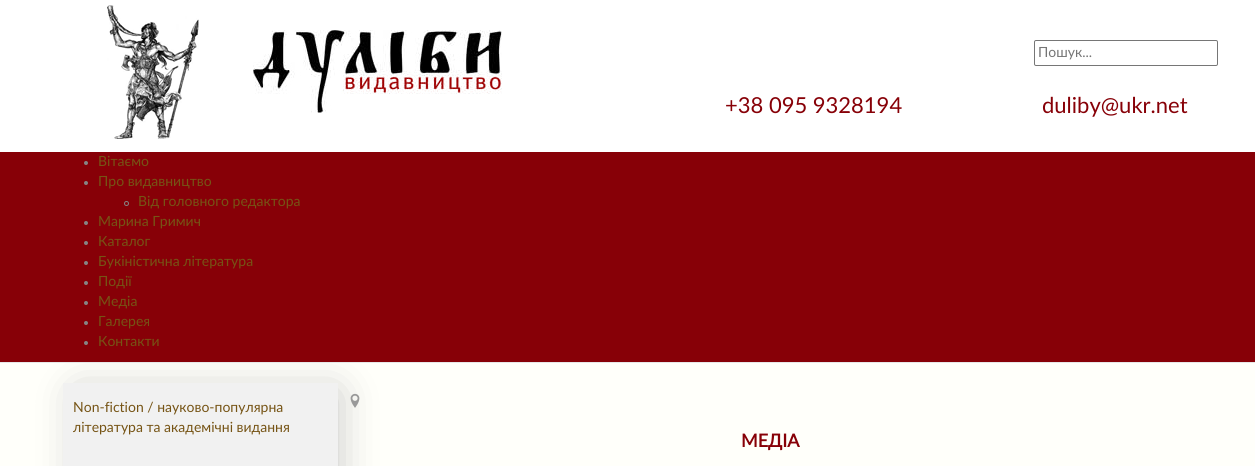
#include <cairo/cairo.h>
#include <math.h>
#include <stddef.h>

typedef struct { double x, y; const char *s; } line_t;
static cairo_t *cr;

static void rgb(unsigned color)
{
	cairo_set_source_rgb(cr, (color >> 16) / 255.0, (color >> 8 & 255) / 255.0, (color & 255) / 255.0);
}

static void rrect(double x, double y, double w, double h, double r)
{
	cairo_new_sub_path(cr);
	cairo_arc(cr, x + w - r, y + h - r, r, 0, M_PI / 2);
	cairo_arc(cr, x + r, y + h - r, r, M_PI / 2, M_PI);
	cairo_arc(cr, x + r, y + r, r, M_PI, 1.5 * M_PI);
	cairo_arc(cr, x + w - r, y + r, r, 1.5 * M_PI, 2 * M_PI);
	cairo_close_path(cr);
}

static void soft_shadow(double x, double y, double w, double h, double r, double blur, double alpha)
{
	cairo_push_group_with_content(cr, CAIRO_CONTENT_ALPHA);
	cairo_set_operator(cr, CAIRO_OPERATOR_SOURCE);
	for (int i = 15; i >= -15 && fmin(w, h) + blur * i / 3 > 0; i -= 2) {
		double e = blur * i / 6;
		cairo_set_source_rgba(cr, 0, 0, 0, alpha * erfc((i - 1) / 8.5) / 2);
		rrect(x - e, y - e, w + 2 * e, h + 2 * e, fmax(0, fmin(r + e + blur * .6, fmin(w, h) / 2 + e)));
		cairo_fill(cr);
	}
	cairo_pattern_t *soft = cairo_pop_group(cr);
	cairo_mask(cr, soft);
	cairo_pattern_destroy(soft);
}

static void image(const char *path, double x, double y, double w, double h)
{
	cairo_surface_t *image = cairo_image_surface_create_from_png(path);
	cairo_save(cr);
	cairo_set_source_surface(cr, image, x, y);
	cairo_rectangle(cr, x, y, w, h);
	cairo_fill(cr);
	cairo_restore(cr);
	cairo_surface_destroy(image);
}

int main(void) {
	cairo_surface_t *surface = cairo_image_surface_create(CAIRO_FORMAT_RGB24, 1255, 466);
	cr = cairo_create(surface);
	cairo_font_options_t *options = cairo_font_options_create();
	cairo_font_options_set_hint_metrics(options, CAIRO_HINT_METRICS_OFF);
	cairo_font_options_set_hint_style(options, CAIRO_HINT_STYLE_NONE);
	cairo_set_font_options(cr, options);
	cairo_set_miter_limit(cr, 4);
	rgb(0xfffffa);
	cairo_paint(cr);
	rgb(0xffffff);
	cairo_rectangle(cr, 0, 0, 1255, 152);
	cairo_fill(cr);
	image("img/1.png", 107, 5, 92, 134);
	image("img/2.png", 253, 30, 249, 83);
	rrect(1034.5, 40.5, 183, 25, 1.5);
	rgb(0x767676);
	cairo_set_line_width(cr, 1);
	cairo_stroke(cr);
	rgb(0xc0c0c0);
	soft_shadow(79, 393, 257, 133, 0, 20, 1);
	rgb(0x870007);
	cairo_rectangle(cr, 0, 152, 1255, 210);
	cairo_fill(cr);
	rgb(0xe7e7e7);
	cairo_rectangle(cr, 0, 362, 1255, 1);
	cairo_fill(cr);
	rgb(0x858585);
	cairo_arc(cr, 86, 163, 2, 0, 2 * M_PI);
	cairo_fill(cr);
	cairo_arc(cr, 86, 183, 2, 0, 2 * M_PI);
	cairo_fill(cr);
	cairo_arc(cr, 126.5, 203.5, 2, 0, 2 * M_PI);
	cairo_stroke(cr);
	cairo_arc(cr, 86, 223, 2, 0, 2 * M_PI);
	cairo_fill(cr);
	cairo_arc(cr, 86, 243, 2, 0, 2 * M_PI);
	cairo_fill(cr);
	cairo_arc(cr, 86, 263, 2, 0, 2 * M_PI);
	cairo_fill(cr);
	cairo_arc(cr, 86, 283, 2, 0, 2 * M_PI);
	cairo_fill(cr);
	cairo_arc(cr, 86, 303, 2, 0, 2 * M_PI);
	cairo_fill(cr);
	cairo_arc(cr, 86, 323, 2, 0, 2 * M_PI);
	cairo_fill(cr);
	cairo_arc(cr, 86, 343, 2, 0, 2 * M_PI);
	cairo_fill(cr);
	rgb(0xf1f1f1);
	cairo_rectangle(cr, 63, 383, 275, 83);
	cairo_fill(cr);
	image("img/3.png", 350, 393, 10, 15);
	cairo_select_font_face(cr, "Lato", CAIRO_FONT_SLANT_NORMAL, CAIRO_FONT_WEIGHT_NORMAL);
	cairo_set_font_size(cr, 14);
	rgb(0x757575);
	cairo_move_to(cr, 1038, 57);
	cairo_show_text(cr, "Пошук...");
	cairo_set_font_size(cr, 22);
	rgb(0x870007);
	cairo_move_to(cr, 725, 113);
	cairo_show_text(cr, "+38 095 9328194");
	cairo_move_to(cr, 1042, 113);
	cairo_show_text(cr, "duliby@ukr.net");
	cairo_set_font_size(cr, 14);
	rgb(0x765415);
	{
		static const line_t items[] = {
			{98, 166, "Вітаємо"},
			{98, 186, "Про видавництво"},
			{138, 206, "Від головного редактора"},
			{98, 226, "Марина Гримич"},
			{98, 246, "Каталог"},
			{98, 266, "Букіністична література"},
			{98, 286, "Події"},
			{98, 306, "Медіа"},
			{98, 326, "Галерея"},
			{98, 346, "Контакти"},
			{73, 412, "Non-fiction / науково-популярна"},
			{73, 432, "література та академічні видання"},
		};
		for (size_t i = 0; i < sizeof items / sizeof *items; i++) {
			cairo_move_to(cr, items[i].x, items[i].y);
			cairo_show_text(cr, items[i].s);
		}
	}
	cairo_select_font_face(cr, "Lato", CAIRO_FONT_SLANT_NORMAL, CAIRO_FONT_WEIGHT_BOLD);
	cairo_set_font_size(cr, 18);
	rgb(0x870007);
	cairo_move_to(cr, 741, 447);
	cairo_show_text(cr, "МЕДІА");
	cairo_surface_write_to_png(surface, "page.png");
	cairo_font_options_destroy(options);
	cairo_destroy(cr);
	cairo_surface_destroy(surface);
	return 0;
}
